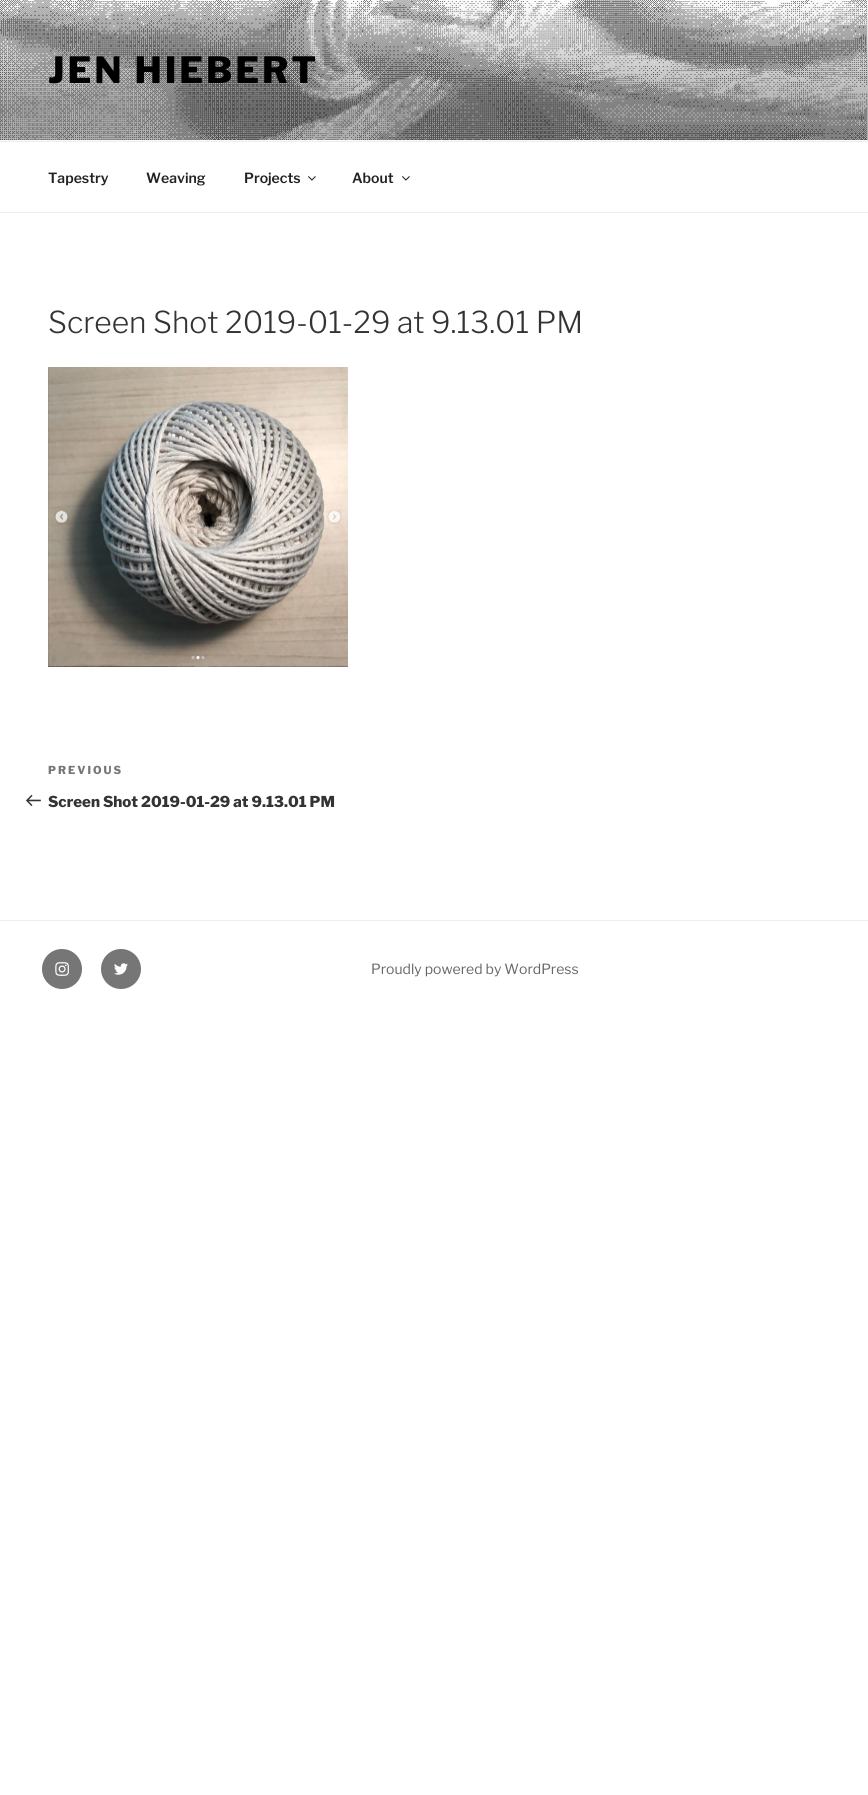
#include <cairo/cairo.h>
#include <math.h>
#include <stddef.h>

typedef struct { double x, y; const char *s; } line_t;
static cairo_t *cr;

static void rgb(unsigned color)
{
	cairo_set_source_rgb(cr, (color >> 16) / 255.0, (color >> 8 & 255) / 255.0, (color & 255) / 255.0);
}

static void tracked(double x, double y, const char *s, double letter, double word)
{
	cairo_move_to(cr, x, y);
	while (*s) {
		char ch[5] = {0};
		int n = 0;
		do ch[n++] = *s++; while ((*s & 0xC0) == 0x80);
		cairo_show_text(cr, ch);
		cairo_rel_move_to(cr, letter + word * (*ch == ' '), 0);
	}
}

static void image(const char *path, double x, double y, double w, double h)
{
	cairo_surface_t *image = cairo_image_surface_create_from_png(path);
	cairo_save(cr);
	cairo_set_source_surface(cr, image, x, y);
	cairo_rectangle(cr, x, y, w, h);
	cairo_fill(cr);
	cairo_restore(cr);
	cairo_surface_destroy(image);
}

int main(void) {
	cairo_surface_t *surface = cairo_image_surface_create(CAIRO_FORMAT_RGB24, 868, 1795);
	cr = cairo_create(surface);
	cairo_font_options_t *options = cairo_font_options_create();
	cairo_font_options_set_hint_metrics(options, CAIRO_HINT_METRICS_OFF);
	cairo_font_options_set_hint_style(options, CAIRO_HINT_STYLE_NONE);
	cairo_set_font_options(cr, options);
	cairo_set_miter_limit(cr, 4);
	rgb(0xffffff);
	cairo_paint(cr);
	rgb(0xfafafa);
	cairo_rectangle(cr, 0, 140, 868, 1);
	cairo_fill(cr);
	image("img/1.png", 0, 0, 868, 140);
	rgb(0xeeeeee);
	cairo_rectangle(cr, 0, 141, 868, 1);
	cairo_fill(cr);
	cairo_rectangle(cr, 0, 212, 868, 1);
	cairo_fill(cr);
	image("img/2.png", 308, 176, 8, 5);
	image("img/2.png", 402, 176, 8, 5);
	image("img/3.png", 48, 367, 300, 300);
	image("img/4.png", 26, 795, 15, 11);
	cairo_rectangle(cr, 0, 920, 868, 1);
	cairo_fill(cr);
	rgb(0x767676);
	cairo_arc(cr, 62, 969, 20, 0, 2 * M_PI);
	cairo_fill(cr);
	image("img/5.png", 55, 962, 14, 14);
	cairo_arc(cr, 121, 969, 20, 0, 2 * M_PI);
	cairo_fill(cr);
	image("img/6.png", 114, 963, 14, 12);
	cairo_select_font_face(cr, "Libre Franklin ExtraBold", CAIRO_FONT_SLANT_NORMAL, CAIRO_FONT_WEIGHT_NORMAL);
	cairo_set_font_size(cr, 36);
	rgb(0x000000);
	tracked(48, 83, "JEN HIEBERT", 2.9, 0);
	cairo_select_font_face(cr, "Libre Franklin SemiBold", CAIRO_FONT_SLANT_NORMAL, CAIRO_FONT_WEIGHT_NORMAL);
	cairo_set_font_size(cr, 14);
	rgb(0x222222);
	{
		static const line_t items[] = {
			{48, 183, "Tapestry"},
			{146, 183, "Weaving"},
			{244, 183, "Projects"},
			{352, 183, "About"},
		};
		for (size_t i = 0; i < sizeof items / sizeof *items; i++) {
			cairo_move_to(cr, items[i].x, items[i].y);
			cairo_show_text(cr, items[i].s);
		}
	}
	cairo_select_font_face(cr, "Libre Franklin Light", CAIRO_FONT_SLANT_NORMAL, CAIRO_FONT_WEIGHT_NORMAL);
	cairo_set_font_size(cr, 30);
	rgb(0x333333);
	cairo_move_to(cr, 48, 333);
	cairo_show_text(cr, "Screen Shot 2019-01-29 at 9.13.01 PM");
	cairo_select_font_face(cr, "Libre Franklin ExtraBold", CAIRO_FONT_SLANT_NORMAL, CAIRO_FONT_WEIGHT_NORMAL);
	cairo_set_font_size(cr, 11);
	rgb(0x767676);
	tracked(48, 774, "PREVIOUS", 2, 0);
	cairo_set_font_size(cr, 15);
	rgb(0x333333);
	cairo_move_to(cr, 48, 807);
	cairo_show_text(cr, "Screen Shot 2019-01-29 at 9.13.01 PM");
	cairo_select_font_face(cr, "Libre Franklin", CAIRO_FONT_SLANT_NORMAL, CAIRO_FONT_WEIGHT_NORMAL);
	cairo_set_font_size(cr, 14);
	rgb(0x666666);
	cairo_move_to(cr, 371, 974);
	cairo_show_text(cr, "Proudly powered by WordPress");
	cairo_surface_write_to_png(surface, "page.png");
	cairo_font_options_destroy(options);
	cairo_destroy(cr);
	cairo_surface_destroy(surface);
	return 0;
}
